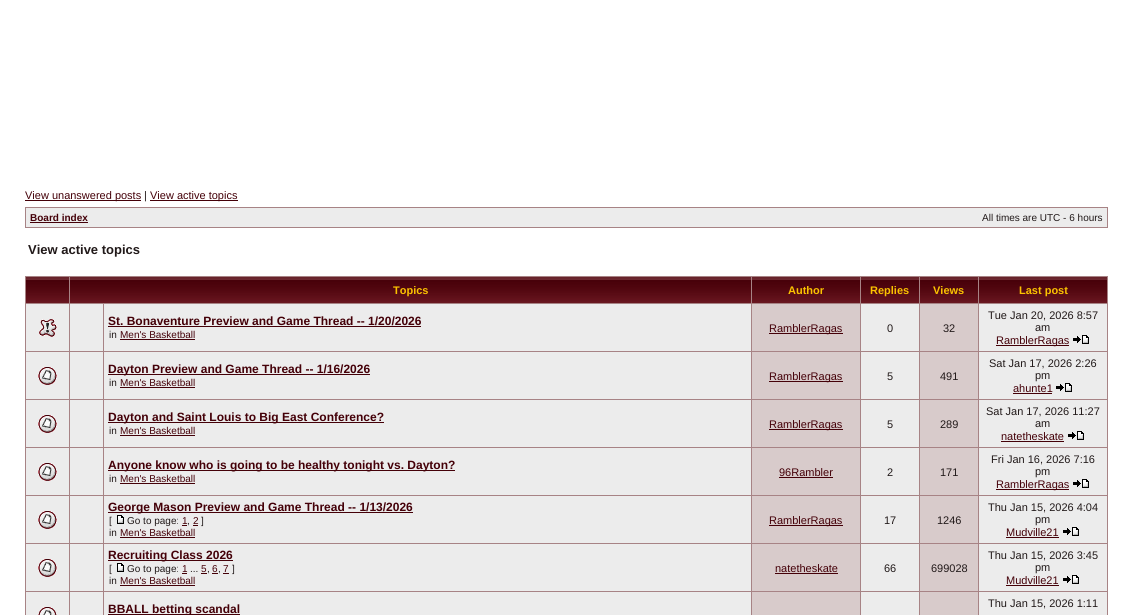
#include <cairo/cairo.h>
#include <math.h>
#include <stddef.h>

typedef struct { double x, y; const char *s; } line_t;
typedef struct { double x, y, w, h; unsigned color; } box_t;
static cairo_t *cr;

static void rgb(unsigned color)
{
	cairo_set_source_rgb(cr, (color >> 16) / 255.0, (color >> 8 & 255) / 255.0, (color & 255) / 255.0);
}

static void image(const char *path, double x, double y, double w, double h)
{
	cairo_surface_t *image = cairo_image_surface_create_from_png(path);
	cairo_save(cr);
	cairo_set_source_surface(cr, image, x, y);
	cairo_rectangle(cr, x, y, w, h);
	cairo_fill(cr);
	cairo_restore(cr);
	cairo_surface_destroy(image);
}

int main(void) {
	cairo_surface_t *surface = cairo_image_surface_create(CAIRO_FORMAT_RGB24, 1133, 615);
	cr = cairo_create(surface);
	cairo_font_options_t *options = cairo_font_options_create();
	cairo_font_options_set_hint_metrics(options, CAIRO_HINT_METRICS_OFF);
	cairo_font_options_set_hint_style(options, CAIRO_HINT_STYLE_NONE);
	cairo_set_font_options(cr, options);
	cairo_set_miter_limit(cr, 4);
	rgb(0xffffff);
	cairo_paint(cr);
	{
		static const box_t items[] = {
			{25, 200, 116, 1, 0x440008},
			{150, 200, 88, 1, 0x440008},
			{25, 207, 1083, 21, 0xa78385},
			{26, 208, 1081, 19, 0xececec},
			{30, 222, 58, 1, 0x440008},
			{25, 276, 1083, 339, 0xa78385},
		};
		for (size_t i = 0; i < sizeof items / sizeof *items; i++) {
			rgb(items[i].color);
			cairo_rectangle(cr, items[i].x, items[i].y, items[i].w, items[i].h);
			cairo_fill(cr);
		}
	}
	image("img/1.png", 26, 277, 43, 26);
	image("img/2.png", 70, 277, 681, 26);
	image("img/3.png", 752, 277, 108, 26);
	image("img/4.png", 861, 277, 58, 26);
	image("img/4.png", 920, 277, 58, 26);
	image("img/5.png", 979, 277, 128, 26);
	rgb(0xececec);
	cairo_rectangle(cr, 26, 304, 43, 47);
	cairo_fill(cr);
	image("img/6.png", 39, 319, 18, 18);
	{
		static const box_t items[] = {
			{70, 304, 33, 47, 0xececec},
			{104, 304, 647, 47, 0xececec},
			{108, 326, 313, 1, 0x440008},
			{120, 339, 75, 1, 0x440008},
			{752, 304, 108, 47, 0xd8cbcb},
			{769, 333, 74, 1, 0x440008},
			{861, 304, 58, 47, 0xececec},
			{920, 304, 58, 47, 0xd8cbcb},
			{979, 304, 128, 47, 0xececec},
			{996, 345, 73, 1, 0x440008},
		};
		for (size_t i = 0; i < sizeof items / sizeof *items; i++) {
			rgb(items[i].color);
			cairo_rectangle(cr, items[i].x, items[i].y, items[i].w, items[i].h);
			cairo_fill(cr);
		}
	}
	image("img/7.png", 1073, 335, 16, 9);
	rgb(0xececec);
	cairo_rectangle(cr, 26, 352, 43, 47);
	cairo_fill(cr);
	image("img/8.png", 38, 367, 19, 18);
	{
		static const box_t items[] = {
			{70, 352, 33, 47, 0xececec},
			{104, 352, 647, 47, 0xececec},
			{108, 374, 262, 1, 0x440008},
			{120, 387, 75, 1, 0x440008},
			{752, 352, 108, 47, 0xd8cbcb},
			{769, 381, 74, 1, 0x440008},
			{861, 352, 58, 47, 0xececec},
			{920, 352, 58, 47, 0xd8cbcb},
			{979, 352, 128, 47, 0xececec},
			{1013, 393, 39, 1, 0x440008},
		};
		for (size_t i = 0; i < sizeof items / sizeof *items; i++) {
			rgb(items[i].color);
			cairo_rectangle(cr, items[i].x, items[i].y, items[i].w, items[i].h);
			cairo_fill(cr);
		}
	}
	image("img/7.png", 1056, 383, 16, 9);
	rgb(0xececec);
	cairo_rectangle(cr, 26, 400, 43, 47);
	cairo_fill(cr);
	image("img/8.png", 38, 415, 19, 18);
	{
		static const box_t items[] = {
			{70, 400, 33, 47, 0xececec},
			{104, 400, 647, 47, 0xececec},
			{108, 422, 276, 1, 0x440008},
			{120, 435, 75, 1, 0x440008},
			{752, 400, 108, 47, 0xd8cbcb},
			{769, 429, 74, 1, 0x440008},
			{861, 400, 58, 47, 0xececec},
			{920, 400, 58, 47, 0xd8cbcb},
			{979, 400, 128, 47, 0xececec},
			{1001, 441, 63, 1, 0x440008},
		};
		for (size_t i = 0; i < sizeof items / sizeof *items; i++) {
			rgb(items[i].color);
			cairo_rectangle(cr, items[i].x, items[i].y, items[i].w, items[i].h);
			cairo_fill(cr);
		}
	}
	image("img/7.png", 1068, 431, 16, 9);
	rgb(0xececec);
	cairo_rectangle(cr, 26, 448, 43, 47);
	cairo_fill(cr);
	image("img/8.png", 38, 463, 19, 18);
	{
		static const box_t items[] = {
			{70, 448, 33, 47, 0xececec},
			{104, 448, 647, 47, 0xececec},
			{108, 470, 347, 1, 0x440008},
			{120, 483, 75, 1, 0x440008},
			{752, 448, 108, 47, 0xd8cbcb},
			{779, 477, 54, 1, 0x440008},
			{861, 448, 58, 47, 0xececec},
			{920, 448, 58, 47, 0xd8cbcb},
			{979, 448, 128, 47, 0xececec},
			{996, 489, 73, 1, 0x440008},
		};
		for (size_t i = 0; i < sizeof items / sizeof *items; i++) {
			rgb(items[i].color);
			cairo_rectangle(cr, items[i].x, items[i].y, items[i].w, items[i].h);
			cairo_fill(cr);
		}
	}
	image("img/7.png", 1073, 479, 16, 9);
	rgb(0xececec);
	cairo_rectangle(cr, 26, 496, 43, 47);
	cairo_fill(cr);
	image("img/8.png", 38, 511, 19, 18);
	{
		static const box_t items[] = {
			{70, 496, 33, 47, 0xececec},
			{104, 496, 647, 47, 0xececec},
			{108, 512, 305, 1, 0x440008},
		};
		for (size_t i = 0; i < sizeof items / sizeof *items; i++) {
			rgb(items[i].color);
			cairo_rectangle(cr, items[i].x, items[i].y, items[i].w, items[i].h);
			cairo_fill(cr);
		}
	}
	image("img/9.png", 117, 515, 7, 9);
	{
		static const box_t items[] = {
			{182, 525, 5, 1, 0x440008},
			{193, 525, 5, 1, 0x440008},
			{120, 537, 75, 1, 0x440008},
			{752, 496, 108, 47, 0xd8cbcb},
			{769, 525, 74, 1, 0x440008},
			{861, 496, 58, 47, 0xececec},
			{920, 496, 58, 47, 0xd8cbcb},
			{979, 496, 128, 47, 0xececec},
			{1006, 537, 53, 1, 0x440008},
		};
		for (size_t i = 0; i < sizeof items / sizeof *items; i++) {
			rgb(items[i].color);
			cairo_rectangle(cr, items[i].x, items[i].y, items[i].w, items[i].h);
			cairo_fill(cr);
		}
	}
	image("img/7.png", 1063, 527, 16, 9);
	rgb(0xececec);
	cairo_rectangle(cr, 26, 544, 43, 47);
	cairo_fill(cr);
	image("img/10.png", 38, 559, 19, 18);
	{
		static const box_t items[] = {
			{70, 544, 33, 47, 0xececec},
			{104, 544, 647, 47, 0xececec},
			{108, 560, 125, 1, 0x440008},
		};
		for (size_t i = 0; i < sizeof items / sizeof *items; i++) {
			rgb(items[i].color);
			cairo_rectangle(cr, items[i].x, items[i].y, items[i].w, items[i].h);
			cairo_fill(cr);
		}
	}
	image("img/9.png", 117, 563, 7, 9);
	{
		static const box_t items[] = {
			{182, 573, 5, 1, 0x440008},
			{201, 573, 6, 1, 0x440008},
			{212, 573, 6, 1, 0x440008},
			{223, 573, 6, 1, 0x440008},
			{120, 585, 75, 1, 0x440008},
			{752, 544, 108, 47, 0xd8cbcb},
			{775, 573, 63, 1, 0x440008},
			{861, 544, 58, 47, 0xececec},
			{920, 544, 58, 47, 0xd8cbcb},
			{979, 544, 128, 47, 0xececec},
			{1006, 585, 53, 1, 0x440008},
		};
		for (size_t i = 0; i < sizeof items / sizeof *items; i++) {
			rgb(items[i].color);
			cairo_rectangle(cr, items[i].x, items[i].y, items[i].w, items[i].h);
			cairo_fill(cr);
		}
	}
	image("img/7.png", 1063, 575, 16, 9);
	rgb(0xececec);
	cairo_rectangle(cr, 26, 592, 43, 23);
	cairo_fill(cr);
	image("img/11.png", 38, 607, 19, 8);
	{
		static const box_t items[] = {
			{70, 592, 33, 23, 0xececec},
			{104, 592, 647, 23, 0xececec},
			{108, 614, 132, 1, 0x440008},
			{752, 592, 108, 23, 0xd8cbcb},
			{861, 592, 58, 23, 0xececec},
			{920, 592, 58, 23, 0xd8cbcb},
			{979, 592, 128, 23, 0xececec},
		};
		for (size_t i = 0; i < sizeof items / sizeof *items; i++) {
			rgb(items[i].color);
			cairo_rectangle(cr, items[i].x, items[i].y, items[i].w, items[i].h);
			cairo_fill(cr);
		}
	}
	cairo_select_font_face(cr, "Liberation Sans", CAIRO_FONT_SLANT_NORMAL, CAIRO_FONT_WEIGHT_NORMAL);
	cairo_set_font_size(cr, 11);
	rgb(0x440008);
	cairo_move_to(cr, 25, 199);
	cairo_show_text(cr, "View unanswered posts");
	rgb(0x211919);
	cairo_move_to(cr, 144, 199);
	cairo_show_text(cr, "|");
	rgb(0x440008);
	cairo_move_to(cr, 150, 199);
	cairo_show_text(cr, "View active topics");
	cairo_select_font_face(cr, "Liberation Sans", CAIRO_FONT_SLANT_NORMAL, CAIRO_FONT_WEIGHT_BOLD);
	cairo_set_font_size(cr, 10);
	cairo_move_to(cr, 30, 221);
	cairo_show_text(cr, "Board index");
	cairo_select_font_face(cr, "Liberation Sans", CAIRO_FONT_SLANT_NORMAL, CAIRO_FONT_WEIGHT_NORMAL);
	rgb(0x211919);
	cairo_move_to(cr, 982, 221);
	cairo_show_text(cr, "All times are UTC - 6 hours");
	cairo_select_font_face(cr, "Liberation Sans", CAIRO_FONT_SLANT_NORMAL, CAIRO_FONT_WEIGHT_BOLD);
	cairo_set_font_size(cr, 13);
	cairo_move_to(cr, 28, 254);
	cairo_show_text(cr, "View active topics");
	cairo_set_font_size(cr, 11);
	rgb(0xfbc300);
	{
		static const line_t items[] = {
			{393, 294, "Topics"},
			{788, 294, "Author"},
			{870, 294, "Replies"},
			{933, 294, "Views"},
			{1019, 294, "Last post"},
		};
		for (size_t i = 0; i < sizeof items / sizeof *items; i++) {
			cairo_move_to(cr, items[i].x, items[i].y);
			cairo_show_text(cr, items[i].s);
		}
	}
	cairo_set_font_size(cr, 12);
	rgb(0x440008);
	cairo_move_to(cr, 108, 325);
	cairo_show_text(cr, "St. Bonaventure Preview and Game Thread -- 1/20/2026");
	cairo_select_font_face(cr, "Liberation Sans", CAIRO_FONT_SLANT_NORMAL, CAIRO_FONT_WEIGHT_NORMAL);
	cairo_set_font_size(cr, 10);
	rgb(0x211919);
	cairo_move_to(cr, 109, 338);
	cairo_show_text(cr, "in");
	rgb(0x440008);
	cairo_move_to(cr, 120, 338);
	cairo_show_text(cr, "Men's Basketball");
	cairo_set_font_size(cr, 11);
	cairo_move_to(cr, 769, 332);
	cairo_show_text(cr, "RamblerRagas");
	rgb(0x211919);
	{
		static const line_t items[] = {
			{887, 332, "0"},
			{943, 332, "32"},
			{988, 319, "Tue Jan 20, 2026 8:57"},
			{1035, 331, "am"},
		};
		for (size_t i = 0; i < sizeof items / sizeof *items; i++) {
			cairo_move_to(cr, items[i].x, items[i].y);
			cairo_show_text(cr, items[i].s);
		}
	}
	rgb(0x440008);
	cairo_move_to(cr, 996, 344);
	cairo_show_text(cr, "RamblerRagas");
	cairo_select_font_face(cr, "Liberation Sans", CAIRO_FONT_SLANT_NORMAL, CAIRO_FONT_WEIGHT_BOLD);
	cairo_set_font_size(cr, 12);
	cairo_move_to(cr, 108, 373);
	cairo_show_text(cr, "Dayton Preview and Game Thread -- 1/16/2026");
	cairo_select_font_face(cr, "Liberation Sans", CAIRO_FONT_SLANT_NORMAL, CAIRO_FONT_WEIGHT_NORMAL);
	cairo_set_font_size(cr, 10);
	rgb(0x211919);
	cairo_move_to(cr, 109, 386);
	cairo_show_text(cr, "in");
	rgb(0x440008);
	cairo_move_to(cr, 120, 386);
	cairo_show_text(cr, "Men's Basketball");
	cairo_set_font_size(cr, 11);
	cairo_move_to(cr, 769, 380);
	cairo_show_text(cr, "RamblerRagas");
	rgb(0x211919);
	{
		static const line_t items[] = {
			{887, 380, "5"},
			{940, 380, "491"},
			{989, 367, "Sat Jan 17, 2026 2:26"},
			{1035, 379, "pm"},
		};
		for (size_t i = 0; i < sizeof items / sizeof *items; i++) {
			cairo_move_to(cr, items[i].x, items[i].y);
			cairo_show_text(cr, items[i].s);
		}
	}
	rgb(0x440008);
	cairo_move_to(cr, 1013, 392);
	cairo_show_text(cr, "ahunte1");
	cairo_select_font_face(cr, "Liberation Sans", CAIRO_FONT_SLANT_NORMAL, CAIRO_FONT_WEIGHT_BOLD);
	cairo_set_font_size(cr, 12);
	cairo_move_to(cr, 108, 421);
	cairo_show_text(cr, "Dayton and Saint Louis to Big East Conference?");
	cairo_select_font_face(cr, "Liberation Sans", CAIRO_FONT_SLANT_NORMAL, CAIRO_FONT_WEIGHT_NORMAL);
	cairo_set_font_size(cr, 10);
	rgb(0x211919);
	cairo_move_to(cr, 109, 434);
	cairo_show_text(cr, "in");
	rgb(0x440008);
	cairo_move_to(cr, 120, 434);
	cairo_show_text(cr, "Men's Basketball");
	cairo_set_font_size(cr, 11);
	cairo_move_to(cr, 769, 428);
	cairo_show_text(cr, "RamblerRagas");
	rgb(0x211919);
	{
		static const line_t items[] = {
			{887, 428, "5"},
			{940, 428, "289"},
			{986, 415, "Sat Jan 17, 2026 11:27"},
			{1035, 427, "am"},
		};
		for (size_t i = 0; i < sizeof items / sizeof *items; i++) {
			cairo_move_to(cr, items[i].x, items[i].y);
			cairo_show_text(cr, items[i].s);
		}
	}
	rgb(0x440008);
	cairo_move_to(cr, 1001, 440);
	cairo_show_text(cr, "natetheskate");
	cairo_select_font_face(cr, "Liberation Sans", CAIRO_FONT_SLANT_NORMAL, CAIRO_FONT_WEIGHT_BOLD);
	cairo_set_font_size(cr, 12);
	cairo_move_to(cr, 108, 469);
	cairo_show_text(cr, "Anyone know who is going to be healthy tonight vs. Dayton?");
	cairo_select_font_face(cr, "Liberation Sans", CAIRO_FONT_SLANT_NORMAL, CAIRO_FONT_WEIGHT_NORMAL);
	cairo_set_font_size(cr, 10);
	rgb(0x211919);
	cairo_move_to(cr, 109, 482);
	cairo_show_text(cr, "in");
	rgb(0x440008);
	cairo_move_to(cr, 120, 482);
	cairo_show_text(cr, "Men's Basketball");
	cairo_set_font_size(cr, 11);
	cairo_move_to(cr, 779, 476);
	cairo_show_text(cr, "96Rambler");
	rgb(0x211919);
	{
		static const line_t items[] = {
			{887, 476, "2"},
			{940, 476, "171"},
			{991, 463, "Fri Jan 16, 2026 7:16"},
			{1035, 475, "pm"},
		};
		for (size_t i = 0; i < sizeof items / sizeof *items; i++) {
			cairo_move_to(cr, items[i].x, items[i].y);
			cairo_show_text(cr, items[i].s);
		}
	}
	rgb(0x440008);
	cairo_move_to(cr, 996, 488);
	cairo_show_text(cr, "RamblerRagas");
	cairo_select_font_face(cr, "Liberation Sans", CAIRO_FONT_SLANT_NORMAL, CAIRO_FONT_WEIGHT_BOLD);
	cairo_set_font_size(cr, 12);
	cairo_move_to(cr, 108, 511);
	cairo_show_text(cr, "George Mason Preview and Game Thread -- 1/13/2026");
	cairo_select_font_face(cr, "Liberation Sans", CAIRO_FONT_SLANT_NORMAL, CAIRO_FONT_WEIGHT_NORMAL);
	cairo_set_font_size(cr, 10);
	rgb(0x211919);
	cairo_move_to(cr, 109, 524);
	cairo_show_text(cr, "[");
	cairo_move_to(cr, 127, 524);
	cairo_show_text(cr, "Go to page:");
	rgb(0x440008);
	cairo_move_to(cr, 182, 524);
	cairo_show_text(cr, "1");
	rgb(0x211919);
	cairo_move_to(cr, 187, 524);
	cairo_show_text(cr, ",");
	rgb(0x440008);
	cairo_move_to(cr, 193, 524);
	cairo_show_text(cr, "2");
	rgb(0x211919);
	cairo_move_to(cr, 201, 524);
	cairo_show_text(cr, "]");
	cairo_move_to(cr, 109, 536);
	cairo_show_text(cr, "in");
	rgb(0x440008);
	cairo_move_to(cr, 120, 536);
	cairo_show_text(cr, "Men's Basketball");
	cairo_set_font_size(cr, 11);
	cairo_move_to(cr, 769, 524);
	cairo_show_text(cr, "RamblerRagas");
	rgb(0x211919);
	{
		static const line_t items[] = {
			{884, 524, "17"},
			{937, 524, "1246"},
			{988, 511, "Thu Jan 15, 2026 4:04"},
			{1035, 523, "pm"},
		};
		for (size_t i = 0; i < sizeof items / sizeof *items; i++) {
			cairo_move_to(cr, items[i].x, items[i].y);
			cairo_show_text(cr, items[i].s);
		}
	}
	rgb(0x440008);
	cairo_move_to(cr, 1006, 536);
	cairo_show_text(cr, "Mudville21");
	cairo_select_font_face(cr, "Liberation Sans", CAIRO_FONT_SLANT_NORMAL, CAIRO_FONT_WEIGHT_BOLD);
	cairo_set_font_size(cr, 12);
	cairo_move_to(cr, 108, 559);
	cairo_show_text(cr, "Recruiting Class 2026");
	cairo_select_font_face(cr, "Liberation Sans", CAIRO_FONT_SLANT_NORMAL, CAIRO_FONT_WEIGHT_NORMAL);
	cairo_set_font_size(cr, 10);
	rgb(0x211919);
	cairo_move_to(cr, 109, 572);
	cairo_show_text(cr, "[");
	cairo_move_to(cr, 127, 572);
	cairo_show_text(cr, "Go to page:");
	rgb(0x440008);
	cairo_move_to(cr, 182, 572);
	cairo_show_text(cr, "1");
	rgb(0x211919);
	cairo_move_to(cr, 190, 572);
	cairo_show_text(cr, "...");
	rgb(0x440008);
	cairo_move_to(cr, 201, 572);
	cairo_show_text(cr, "5");
	rgb(0x211919);
	cairo_move_to(cr, 207, 572);
	cairo_show_text(cr, ",");
	rgb(0x440008);
	cairo_move_to(cr, 212, 572);
	cairo_show_text(cr, "6");
	rgb(0x211919);
	cairo_move_to(cr, 218, 572);
	cairo_show_text(cr, ",");
	rgb(0x440008);
	cairo_move_to(cr, 223, 572);
	cairo_show_text(cr, "7");
	rgb(0x211919);
	cairo_move_to(cr, 232, 572);
	cairo_show_text(cr, "]");
	cairo_move_to(cr, 109, 584);
	cairo_show_text(cr, "in");
	rgb(0x440008);
	cairo_move_to(cr, 120, 584);
	cairo_show_text(cr, "Men's Basketball");
	cairo_set_font_size(cr, 11);
	cairo_move_to(cr, 775, 572);
	cairo_show_text(cr, "natetheskate");
	rgb(0x211919);
	{
		static const line_t items[] = {
			{884, 572, "66"},
			{931, 572, "699028"},
			{988, 559, "Thu Jan 15, 2026 3:45"},
			{1035, 571, "pm"},
		};
		for (size_t i = 0; i < sizeof items / sizeof *items; i++) {
			cairo_move_to(cr, items[i].x, items[i].y);
			cairo_show_text(cr, items[i].s);
		}
	}
	rgb(0x440008);
	cairo_move_to(cr, 1006, 584);
	cairo_show_text(cr, "Mudville21");
	cairo_select_font_face(cr, "Liberation Sans", CAIRO_FONT_SLANT_NORMAL, CAIRO_FONT_WEIGHT_BOLD);
	cairo_set_font_size(cr, 12);
	cairo_move_to(cr, 108, 613);
	cairo_show_text(cr, "BBALL betting scandal");
	cairo_select_font_face(cr, "Liberation Sans", CAIRO_FONT_SLANT_NORMAL, CAIRO_FONT_WEIGHT_NORMAL);
	cairo_set_font_size(cr, 11);
	rgb(0x211919);
	cairo_move_to(cr, 988, 607);
	cairo_show_text(cr, "Thu Jan 15, 2026 1:11");
	cairo_surface_write_to_png(surface, "page.png");
	cairo_font_options_destroy(options);
	cairo_destroy(cr);
	cairo_surface_destroy(surface);
	return 0;
}
